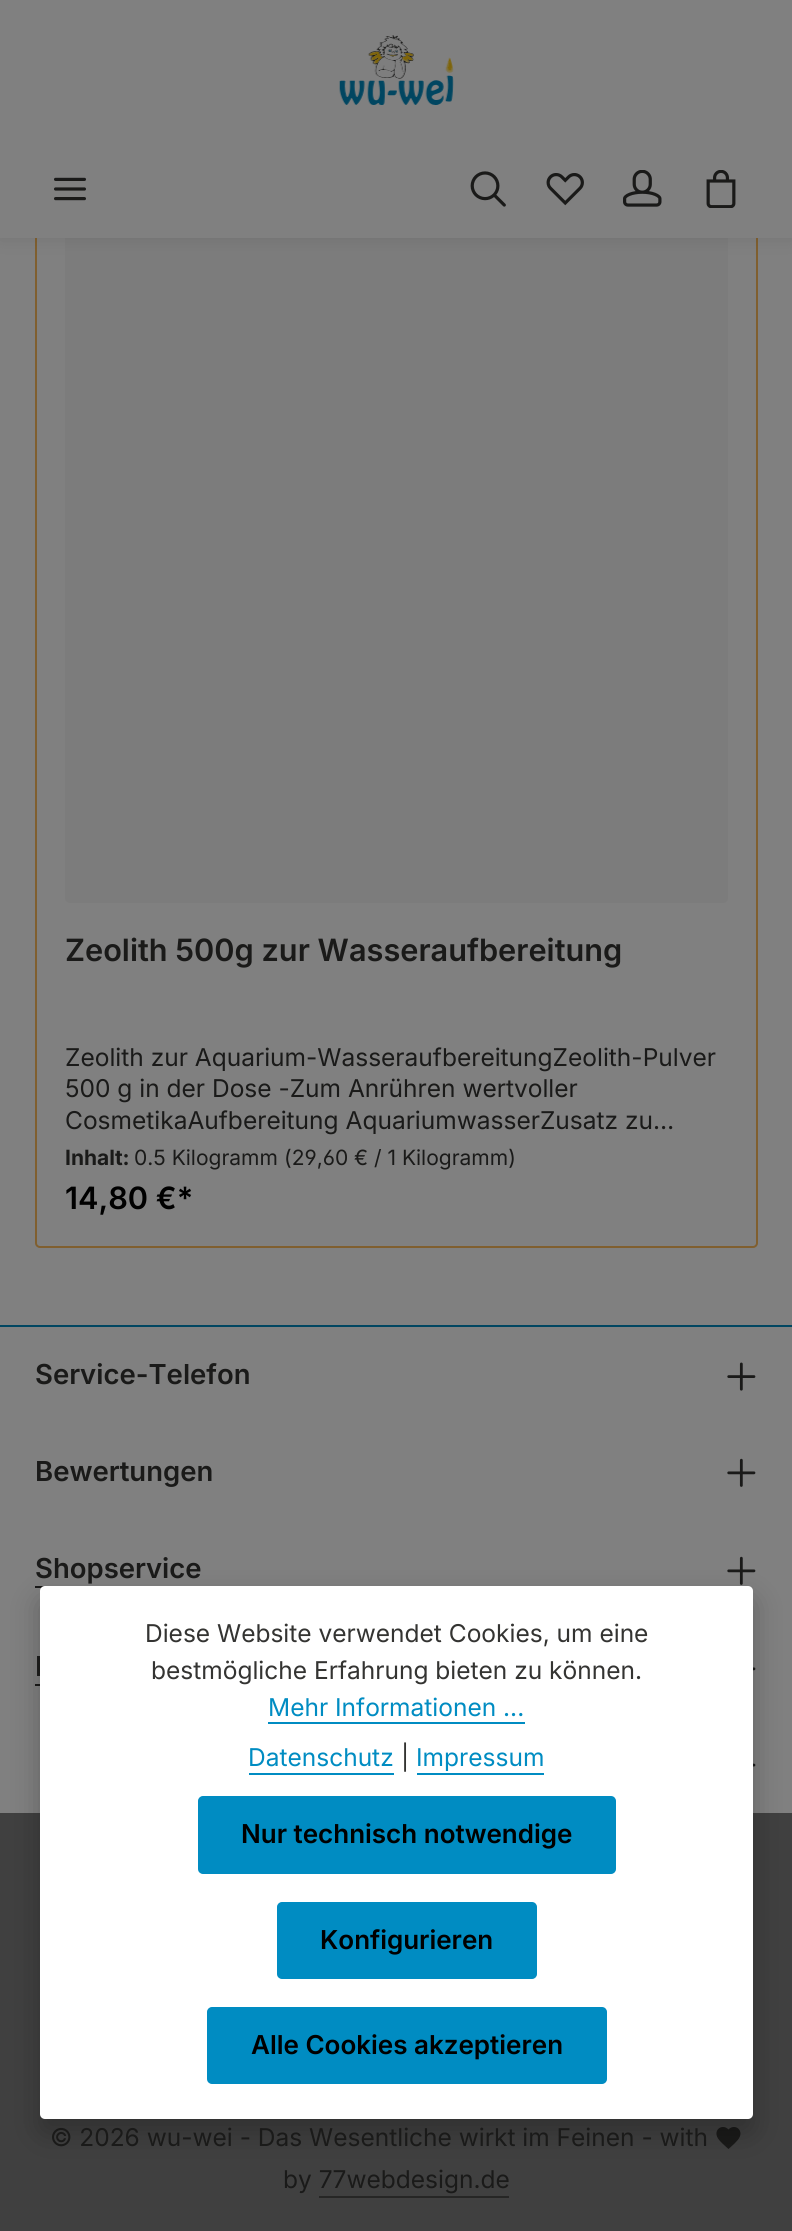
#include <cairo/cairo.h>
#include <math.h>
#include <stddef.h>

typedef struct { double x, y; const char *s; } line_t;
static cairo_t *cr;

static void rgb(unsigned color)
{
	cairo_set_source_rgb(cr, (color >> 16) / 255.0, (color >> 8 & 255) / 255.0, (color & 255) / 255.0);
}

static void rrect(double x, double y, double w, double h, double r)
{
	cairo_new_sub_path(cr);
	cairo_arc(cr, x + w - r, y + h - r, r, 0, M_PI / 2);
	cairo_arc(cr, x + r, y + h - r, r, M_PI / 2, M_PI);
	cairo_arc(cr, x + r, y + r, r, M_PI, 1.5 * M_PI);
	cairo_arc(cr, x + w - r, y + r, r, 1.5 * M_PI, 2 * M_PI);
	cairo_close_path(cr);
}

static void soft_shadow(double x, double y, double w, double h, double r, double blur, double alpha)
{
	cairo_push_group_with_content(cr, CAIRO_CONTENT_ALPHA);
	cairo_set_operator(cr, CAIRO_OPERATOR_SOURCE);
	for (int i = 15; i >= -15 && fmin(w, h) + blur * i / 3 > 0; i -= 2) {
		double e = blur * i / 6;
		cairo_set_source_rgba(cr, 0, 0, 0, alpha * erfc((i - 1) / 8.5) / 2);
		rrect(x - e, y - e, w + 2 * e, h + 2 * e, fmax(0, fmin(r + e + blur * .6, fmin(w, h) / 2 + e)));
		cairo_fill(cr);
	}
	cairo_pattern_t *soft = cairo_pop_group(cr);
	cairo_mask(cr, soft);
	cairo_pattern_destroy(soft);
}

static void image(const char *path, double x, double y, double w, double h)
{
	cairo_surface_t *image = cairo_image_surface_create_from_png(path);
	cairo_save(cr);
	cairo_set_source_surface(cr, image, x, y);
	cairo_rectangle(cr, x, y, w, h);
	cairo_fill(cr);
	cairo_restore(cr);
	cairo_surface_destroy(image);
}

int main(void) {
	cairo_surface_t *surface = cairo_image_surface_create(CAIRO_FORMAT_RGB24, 792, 2231);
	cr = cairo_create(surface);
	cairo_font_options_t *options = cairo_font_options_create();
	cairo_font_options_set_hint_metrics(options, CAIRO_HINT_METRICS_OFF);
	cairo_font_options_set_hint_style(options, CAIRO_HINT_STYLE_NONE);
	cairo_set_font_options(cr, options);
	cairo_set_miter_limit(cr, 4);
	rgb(0x808080);
	cairo_paint(cr);
	rrect(36, -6, 721, 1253, 4);
	rgb(0x805f2f);
	cairo_stroke(cr);
	rgb(0x7c7c7c);
	rrect(65, 19, 663, 884, 5);
	cairo_fill(cr);
	rgb(0x000000);
	soft_shadow(0, 0, 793, 238, 0, 9, 0.1);
	rgb(0x808080);
	cairo_rectangle(cr, 0, 0, 792, 238);
	cairo_fill(cr);
	image("img/1.png", 339, 35, 115, 70);
	image("img/2.png", 54, 177, 32, 24);
	image("img/3.png", 470, 171, 36, 36);
	image("img/4.png", 546, 173, 38, 33);
	image("img/5.png", 623, 170, 39, 37);
	image("img/6.png", 706, 170, 30, 38);
	rgb(0x004661);
	cairo_rectangle(cr, 0, 1325, 792, 2);
	cairo_fill(cr);
	image("img/7.png", 727, 1362, 29, 29);
	image("img/8.png", 727, 1458, 29, 29);
	rgb(0x1a1a19);
	cairo_rectangle(cr, 35, 1586, 10, 2);
	cairo_fill(cr);
	image("img/8.png", 727, 1556, 29, 29);
	cairo_rectangle(cr, 35, 1684, 5, 2);
	cairo_fill(cr);
	image("img/9.png", 753, 1667, 3, 4);
	image("img/10.png", 753, 1763, 3, 4);
	rgb(0x404040);
	cairo_rectangle(cr, 0, 1813, 792, 418);
	cairo_fill(cr);
	image("img/11.png", 716, 2127, 25, 22);
	rgb(0x262625);
	cairo_rectangle(cr, 319, 2196, 190, 2);
	cairo_fill(cr);
	rgb(0x000000);
	soft_shadow(40, 1600, 713, 533, 5, 14, 0.25);
	cairo_select_font_face(cr, "Inter SemiBold", CAIRO_FONT_SLANT_NORMAL, CAIRO_FONT_WEIGHT_NORMAL);
	cairo_set_font_size(cr, 30.7);
	rgb(0x1a1a19);
	cairo_move_to(cr, 65, 961);
	cairo_show_text(cr, "Zeolith 500g zur Wasseraufbereitung");
	cairo_select_font_face(cr, "Inter", CAIRO_FONT_SLANT_NORMAL, CAIRO_FONT_WEIGHT_NORMAL);
	cairo_set_font_size(cr, 24.5);
	{
		static const line_t items[] = {
			{65, 1066, "Zeolith zur Aquarium-WasseraufbereitungZeolith-Pulver"},
			{65, 1097, "500 g in der Dose -Zum Anrühren wertvoller"},
			{65, 1129, "CosmetikaAufbereitung AquariumwasserZusatz zu…"},
		};
		for (size_t i = 0; i < sizeof items / sizeof *items; i++) {
			cairo_move_to(cr, items[i].x, items[i].y);
			cairo_show_text(cr, items[i].s);
		}
	}
	cairo_select_font_face(cr, "Inter", CAIRO_FONT_SLANT_NORMAL, CAIRO_FONT_WEIGHT_BOLD);
	cairo_set_font_size(cr, 21);
	cairo_move_to(cr, 65, 1165);
	cairo_show_text(cr, "Inhalt:");
	cairo_select_font_face(cr, "Inter", CAIRO_FONT_SLANT_NORMAL, CAIRO_FONT_WEIGHT_NORMAL);
	cairo_move_to(cr, 134, 1165);
	cairo_show_text(cr, "0.5 Kilogramm");
	cairo_select_font_face(cr, "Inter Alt", CAIRO_FONT_SLANT_NORMAL, CAIRO_FONT_WEIGHT_NORMAL);
	cairo_move_to(cr, 284, 1165);
	cairo_show_text(cr, "(29,60 € / 1 Kilogramm)");
	cairo_select_font_face(cr, "Inter SemiBold", CAIRO_FONT_SLANT_NORMAL, CAIRO_FONT_WEIGHT_NORMAL);
	cairo_set_font_size(cr, 30.7);
	rgb(0x000000);
	cairo_move_to(cr, 65, 1209);
	cairo_show_text(cr, "14,80 €*");
	cairo_set_font_size(cr, 27.5);
	rgb(0x1a1a19);
	{
		static const line_t items[] = {
			{35, 1384, "Service-Telefon"},
			{35, 1481, "Bewertungen"},
			{35, 1578, "Shopservice"},
			{35, 1676, "I"},
		};
		for (size_t i = 0; i < sizeof items / sizeof *items; i++) {
			cairo_move_to(cr, items[i].x, items[i].y);
			cairo_show_text(cr, items[i].s);
		}
	}
	cairo_select_font_face(cr, "Inter", CAIRO_FONT_SLANT_NORMAL, CAIRO_FONT_WEIGHT_NORMAL);
	cairo_set_font_size(cr, 24.5);
	cairo_move_to(cr, 50, 2146);
	cairo_show_text(cr, "© 2026 wu-wei - Das Wesentliche wirkt im Feinen - with");
	cairo_move_to(cr, 283, 2188);
	cairo_show_text(cr, "by 77webdesign.de");
	rgb(0xffffff);
	rrect(40, 1586, 713, 533, 5);
	cairo_fill(cr);
	rgb(0x343432);
	cairo_move_to(cr, 145, 1642);
	cairo_show_text(cr, "Diese Website verwendet Cookies, um eine");
	cairo_move_to(cr, 151, 1679);
	cairo_show_text(cr, "bestmögliche Erfahrung bieten zu können.");
	rgb(0x008cc2);
	cairo_move_to(cr, 268, 1716);
	cairo_show_text(cr, "Mehr Informationen ...");
	cairo_rectangle(cr, 268, 1722, 257, 2);
	cairo_fill(cr);
	cairo_move_to(cr, 248, 1766);
	cairo_show_text(cr, "Datenschutz");
	cairo_rectangle(cr, 249, 1773, 145, 2);
	cairo_fill(cr);
	rgb(0x343432);
	cairo_move_to(cr, 401, 1766);
	cairo_show_text(cr, "|");
	rgb(0x008cc2);
	cairo_move_to(cr, 416, 1766);
	cairo_show_text(cr, "Impressum");
	cairo_rectangle(cr, 417, 1773, 127, 2);
	cairo_fill(cr);
	rrect(199, 1797, 416, 76, 4);
	cairo_fill_preserve(cr);
	cairo_stroke(cr);
	cairo_select_font_face(cr, "Inter SemiBold", CAIRO_FONT_SLANT_NORMAL, CAIRO_FONT_WEIGHT_NORMAL);
	cairo_set_font_size(cr, 26);
	rgb(0x000000);
	cairo_move_to(cr, 241, 1843);
	cairo_show_text(cr, "Nur technisch notwendige");
	rgb(0x008cc2);
	rrect(278, 1903, 258, 75, 4);
	cairo_fill_preserve(cr);
	cairo_stroke(cr);
	rgb(0x000000);
	cairo_move_to(cr, 320, 1949);
	cairo_show_text(cr, "Konfigurieren");
	rgb(0x008cc2);
	rrect(208, 2008, 398, 75, 4);
	cairo_fill_preserve(cr);
	cairo_stroke(cr);
	rgb(0x000000);
	cairo_move_to(cr, 251, 2054);
	cairo_show_text(cr, "Alle Cookies akzeptieren");
	cairo_surface_write_to_png(surface, "page.png");
	cairo_font_options_destroy(options);
	cairo_destroy(cr);
	cairo_surface_destroy(surface);
	return 0;
}
